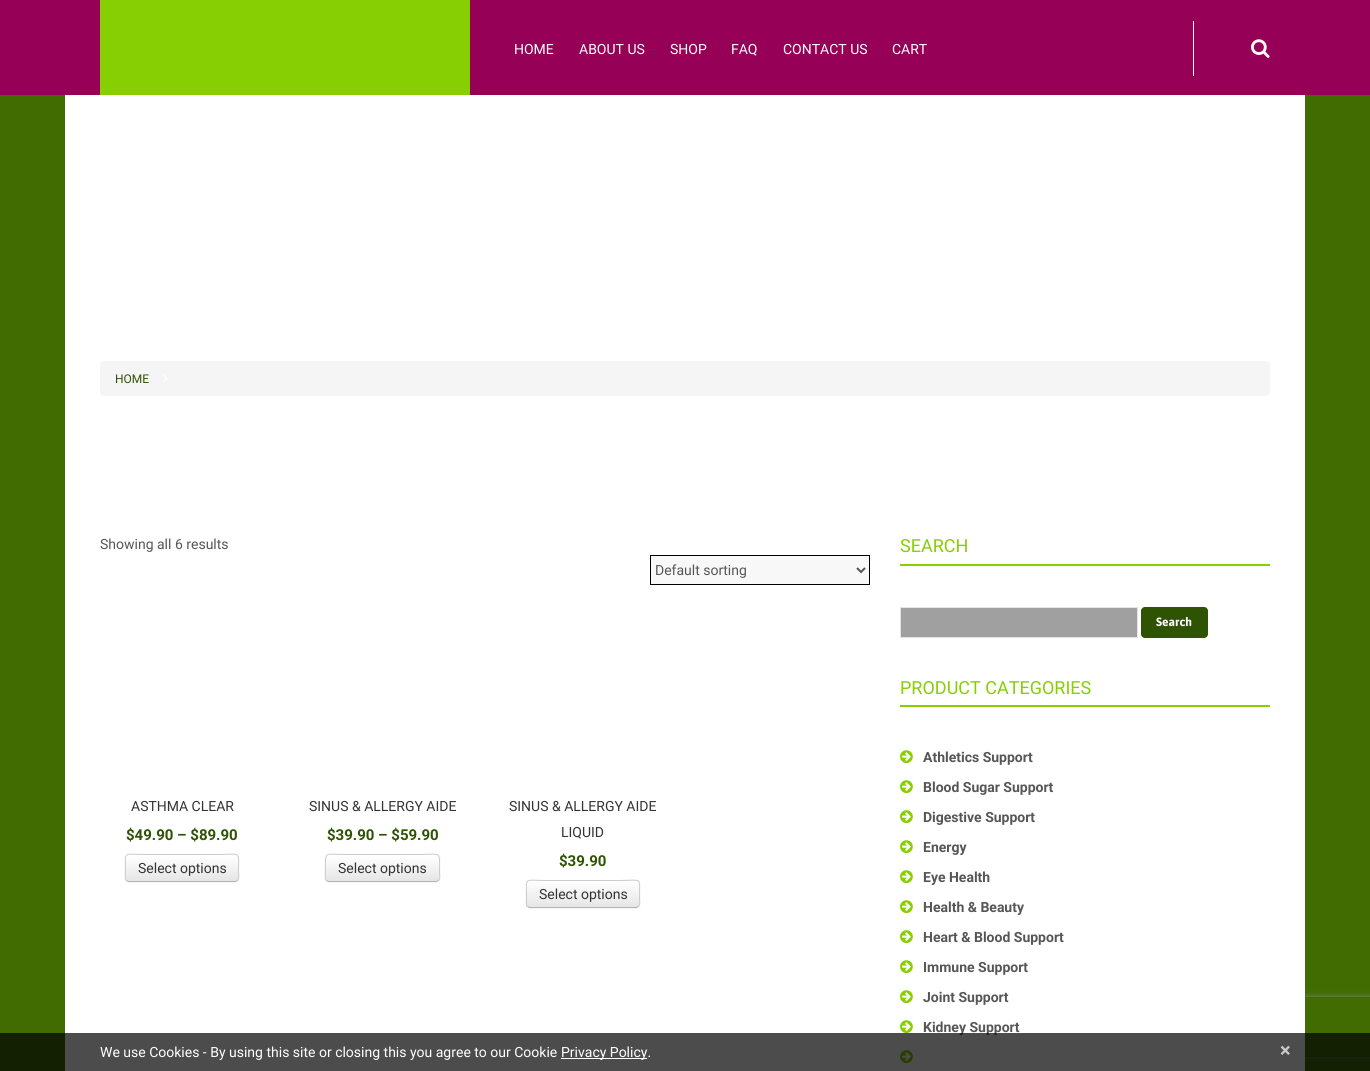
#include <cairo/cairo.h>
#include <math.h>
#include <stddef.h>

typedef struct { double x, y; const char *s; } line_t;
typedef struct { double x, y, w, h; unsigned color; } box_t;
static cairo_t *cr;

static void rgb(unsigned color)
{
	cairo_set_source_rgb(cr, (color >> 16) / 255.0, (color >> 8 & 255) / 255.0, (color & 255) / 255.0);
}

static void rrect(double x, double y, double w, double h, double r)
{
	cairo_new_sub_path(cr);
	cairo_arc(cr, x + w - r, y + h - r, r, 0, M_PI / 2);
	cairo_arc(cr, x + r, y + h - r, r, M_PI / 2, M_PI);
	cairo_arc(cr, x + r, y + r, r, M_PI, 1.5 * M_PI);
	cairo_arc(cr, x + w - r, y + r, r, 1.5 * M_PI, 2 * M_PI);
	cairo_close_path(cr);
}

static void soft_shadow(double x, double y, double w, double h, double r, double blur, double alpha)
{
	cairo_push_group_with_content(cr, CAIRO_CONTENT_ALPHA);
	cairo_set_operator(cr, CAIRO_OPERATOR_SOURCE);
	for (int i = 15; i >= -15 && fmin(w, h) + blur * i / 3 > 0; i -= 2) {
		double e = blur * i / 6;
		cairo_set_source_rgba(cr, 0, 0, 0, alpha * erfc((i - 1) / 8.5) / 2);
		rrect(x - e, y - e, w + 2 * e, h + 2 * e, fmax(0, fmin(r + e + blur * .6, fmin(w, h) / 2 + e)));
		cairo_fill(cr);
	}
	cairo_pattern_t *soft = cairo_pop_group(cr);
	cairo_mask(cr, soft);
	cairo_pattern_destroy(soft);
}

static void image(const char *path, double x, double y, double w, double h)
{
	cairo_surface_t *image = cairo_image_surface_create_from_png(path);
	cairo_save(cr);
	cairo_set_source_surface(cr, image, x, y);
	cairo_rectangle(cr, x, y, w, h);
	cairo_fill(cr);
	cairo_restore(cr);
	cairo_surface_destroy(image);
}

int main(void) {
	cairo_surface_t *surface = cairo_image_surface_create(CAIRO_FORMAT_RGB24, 1370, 1071);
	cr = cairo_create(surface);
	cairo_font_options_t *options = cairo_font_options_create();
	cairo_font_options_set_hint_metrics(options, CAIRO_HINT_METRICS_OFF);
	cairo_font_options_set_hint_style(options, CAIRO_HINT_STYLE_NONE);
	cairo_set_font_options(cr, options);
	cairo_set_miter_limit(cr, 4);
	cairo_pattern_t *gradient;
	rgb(0x406c02);
	cairo_paint(cr);
	{
		static const box_t items[] = {
			{0, 0, 1370, 95, 0x960056},
			{100, 0, 370, 95, 0x87ce02},
			{1193, 21, 1, 55, 0xffffff},
		};
		for (size_t i = 0; i < sizeof items / sizeof *items; i++) {
			rgb(items[i].color);
			cairo_rectangle(cr, items[i].x, items[i].y, items[i].w, items[i].h);
			cairo_fill(cr);
		}
	}
	image("img/1.png", 1251, 39, 19, 19);
	cairo_save(cr);
	cairo_set_fill_rule(cr, CAIRO_FILL_RULE_EVEN_ODD);
	cairo_new_path(cr);
	cairo_move_to(cr, 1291, 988);
	cairo_line_to(cr, 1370, 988);
	cairo_line_to(cr, 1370, 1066);
	cairo_line_to(cr, 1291, 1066);
	cairo_close_path(cr);
	cairo_move_to(cr, 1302, 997);
	cairo_line_to(cr, 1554, 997);
	cairo_curve_to(cr, 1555, 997, 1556, 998, 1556, 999);
	cairo_line_to(cr, 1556, 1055);
	cairo_curve_to(cr, 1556, 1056, 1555, 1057, 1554, 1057);
	cairo_line_to(cr, 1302, 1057);
	cairo_curve_to(cr, 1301, 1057, 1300, 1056, 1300, 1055);
	cairo_line_to(cr, 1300, 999);
	cairo_curve_to(cr, 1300, 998, 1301, 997, 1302, 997);
	cairo_close_path(cr);
	cairo_clip(cr);
	rgb(0x808080);
	soft_shadow(1300, 997, 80, 60, 2, 2.5, 1);
	cairo_restore(cr);
	cairo_rectangle(cr, 65, 95, 1240, 976);
	cairo_fill(cr);
	rgb(0xf5f5f5);
	rrect(100, 361, 1170, 35, 4);
	cairo_fill(cr);
	image("img/2.png", 163, 375, 5, 7);
	rgb(0xf8f8f8);
	cairo_rectangle(cr, 650.5, 555.5, 219, 29);
	cairo_fill_preserve(cr);
	rgb(0x000000);
	cairo_set_line_width(cr, 1);
	cairo_stroke(cr);
	cairo_new_path(cr);
	cairo_move_to(cr, 857, 568);
	cairo_line_to(cr, 861, 572);
	cairo_line_to(cr, 865, 568);
	rgb(0x555555);
	cairo_set_line_width(cr, 2);
	cairo_stroke(cr);
	rgb(0x000000);
	soft_shadow(125, 855, 114, 28, 4, 1, 0.05);
	rgb(0xf5f5f5);
	rrect(125, 854, 114, 28, 4);
	cairo_fill(cr);
	cairo_save(cr);
	rrect(125, 854, 114, 28, 4);
	cairo_clip(cr);
	gradient = cairo_pattern_create_linear(182, 855, 182, 881);
	cairo_pattern_add_color_stop_rgba(gradient, 0, 1, 1, 1, 1);
	cairo_pattern_add_color_stop_rgba(gradient, 1, 0.902, 0.902, 0.902, 1);
	cairo_set_source(cr, gradient);
	cairo_pattern_destroy(gradient);
	cairo_rectangle(cr, 125, 855, 114, 26);
	cairo_fill(cr);
	cairo_restore(cr);
	cairo_new_path(cr);
	cairo_move_to(cr, 237.5, 880.5);
	cairo_line_to(cr, 235.5, 881.5);
	cairo_line_to(cr, 146.5, 881.5);
	cairo_line_to(cr, 129, 881.5);
	cairo_line_to(cr, 126.5, 880.5);
	rgb(0xb3b3b3);
	cairo_set_line_width(cr, 1);
	cairo_stroke(cr);
	cairo_new_path(cr);
	cairo_move_to(cr, 126.5, 880.5);
	cairo_curve_to(cr, 124.5, 878.5, 125.5, 874, 125.5, 871.5);
	cairo_curve_to(cr, 125.5, 850, 122.5, 854.5, 146.5, 854.5);
	cairo_line_to(cr, 217.5, 854.5);
	cairo_curve_to(cr, 241.5, 854.5, 238.5, 850, 238.5, 871.5);
	cairo_curve_to(cr, 238.5, 874, 239.5, 878.5, 237.5, 880.5);
	rgb(0xcccccc);
	cairo_stroke(cr);
	rgb(0x000000);
	soft_shadow(325, 855, 115, 28, 4, 1, 0.05);
	rgb(0xf5f5f5);
	rrect(325, 854, 115, 28, 4);
	cairo_fill(cr);
	cairo_save(cr);
	rrect(325, 854, 115, 28, 4);
	cairo_clip(cr);
	gradient = cairo_pattern_create_linear(383, 855, 383, 881);
	cairo_pattern_add_color_stop_rgba(gradient, 0, 1, 1, 1, 1);
	cairo_pattern_add_color_stop_rgba(gradient, 1, 0.902, 0.902, 0.902, 1);
	cairo_set_source(cr, gradient);
	cairo_pattern_destroy(gradient);
	cairo_rectangle(cr, 325, 855, 115, 26);
	cairo_fill(cr);
	cairo_restore(cr);
	cairo_new_path(cr);
	cairo_move_to(cr, 438.5, 880.5);
	cairo_line_to(cr, 436, 881.5);
	cairo_line_to(cr, 328.5, 881.5);
	cairo_line_to(cr, 326.5, 880.5);
	rgb(0xb3b3b3);
	cairo_stroke(cr);
	cairo_new_path(cr);
	cairo_move_to(cr, 326.5, 880.5);
	cairo_curve_to(cr, 324.5, 878.5, 325.5, 874, 325.5, 871.5);
	cairo_curve_to(cr, 325.5, 850, 323, 854.5, 347, 854.5);
	cairo_line_to(cr, 418, 854.5);
	cairo_curve_to(cr, 442, 854.5, 439.5, 850, 439.5, 871.5);
	cairo_curve_to(cr, 439.5, 874, 440.5, 878.5, 438.5, 880.5);
	rgb(0xcccccc);
	cairo_stroke(cr);
	rgb(0x000000);
	soft_shadow(526, 881, 114, 28, 4, 1, 0.05);
	rgb(0xf5f5f5);
	rrect(526, 880, 114, 28, 4);
	cairo_fill(cr);
	cairo_save(cr);
	rrect(526, 880, 114, 28, 4);
	cairo_clip(cr);
	gradient = cairo_pattern_create_linear(583, 881, 583, 907);
	cairo_pattern_add_color_stop_rgba(gradient, 0, 1, 1, 1, 1);
	cairo_pattern_add_color_stop_rgba(gradient, 1, 0.902, 0.902, 0.902, 1);
	cairo_set_source(cr, gradient);
	cairo_pattern_destroy(gradient);
	cairo_rectangle(cr, 526, 881, 114, 26);
	cairo_fill(cr);
	cairo_restore(cr);
	cairo_new_path(cr);
	cairo_move_to(cr, 638.5, 906.5);
	cairo_line_to(cr, 636, 907.5);
	cairo_line_to(cr, 529.5, 907.5);
	cairo_line_to(cr, 527.5, 906.5);
	rgb(0xb3b3b3);
	cairo_stroke(cr);
	cairo_new_path(cr);
	cairo_move_to(cr, 527.5, 906.5);
	cairo_curve_to(cr, 525.5, 904.5, 526.5, 900, 526.5, 897.5);
	cairo_curve_to(cr, 526.5, 876, 523.5, 880.5, 547.5, 880.5);
	cairo_line_to(cr, 618.5, 880.5);
	cairo_curve_to(cr, 642.5, 880.5, 639.5, 876, 639.5, 897.5);
	cairo_curve_to(cr, 639.5, 900, 640.5, 904.5, 638.5, 906.5);
	rgb(0xcccccc);
	cairo_stroke(cr);
	rgb(0x87ce02);
	cairo_rectangle(cr, 900, 564, 370, 2);
	cairo_fill(cr);
	rgb(0xa0a0a0);
	cairo_rectangle(cr, 900.5, 607.5, 237, 30);
	cairo_fill_preserve(cr);
	rgb(0xe4e4e4);
	cairo_stroke(cr);
	rgb(0x2e5302);
	rrect(1141, 607, 67, 31, 4);
	cairo_fill(cr);
	rgb(0x87ce02);
	cairo_rectangle(cr, 900, 705, 370, 2);
	cairo_fill(cr);
	image("img/3.png", 900, 750, 13, 14);
	image("img/3.png", 900, 780, 13, 14);
	image("img/3.png", 900, 810, 13, 14);
	image("img/3.png", 900, 840, 13, 14);
	image("img/3.png", 900, 870, 13, 14);
	image("img/3.png", 900, 900, 13, 14);
	image("img/3.png", 900, 930, 13, 14);
	image("img/3.png", 900, 960, 13, 14);
	image("img/3.png", 900, 990, 13, 14);
	image("img/3.png", 900, 1020, 13, 14);
	image("img/3.png", 900, 1050, 13, 14);
	cairo_select_font_face(cr, "Roboto", CAIRO_FONT_SLANT_NORMAL, CAIRO_FONT_WEIGHT_NORMAL);
	cairo_set_font_size(cr, 14);
	rgb(0xffffff);
	{
		static const line_t items[] = {
			{514, 54, "HOME"},
			{579, 54, "ABOUT US"},
			{670, 54, "SHOP"},
			{731, 54, "FAQ"},
			{783, 54, "CONTACT US"},
			{892, 54, "CART"},
		};
		for (size_t i = 0; i < sizeof items / sizeof *items; i++) {
			cairo_move_to(cr, items[i].x, items[i].y);
			cairo_show_text(cr, items[i].s);
		}
	}
	cairo_set_font_size(cr, 12);
	rgb(0x2e5302);
	cairo_move_to(cr, 115, 383);
	cairo_show_text(cr, "HOME");
	cairo_set_font_size(cr, 14);
	rgb(0x565656);
	cairo_move_to(cr, 100, 549);
	cairo_show_text(cr, "Showing all 6 results");
	cairo_move_to(cr, 655, 575);
	cairo_show_text(cr, "Default sorting");
	rgb(0x333333);
	cairo_move_to(cr, 131, 811);
	cairo_show_text(cr, "ASTHMA CLEAR");
	cairo_select_font_face(cr, "Roboto", CAIRO_FONT_SLANT_NORMAL, CAIRO_FONT_WEIGHT_BOLD);
	cairo_set_font_size(cr, 15);
	rgb(0x2e5302);
	cairo_move_to(cr, 126, 840);
	cairo_show_text(cr, "$49.90 – $89.90");
	cairo_select_font_face(cr, "Roboto", CAIRO_FONT_SLANT_NORMAL, CAIRO_FONT_WEIGHT_NORMAL);
	cairo_set_font_size(cr, 14);
	rgb(0x333333);
	cairo_move_to(cr, 138, 873);
	cairo_show_text(cr, "Select options");
	cairo_move_to(cr, 309, 811);
	cairo_show_text(cr, "SINUS & ALLERGY AIDE");
	cairo_select_font_face(cr, "Roboto", CAIRO_FONT_SLANT_NORMAL, CAIRO_FONT_WEIGHT_BOLD);
	cairo_set_font_size(cr, 15);
	rgb(0x2e5302);
	cairo_move_to(cr, 327, 840);
	cairo_show_text(cr, "$39.90 – $59.90");
	cairo_select_font_face(cr, "Roboto", CAIRO_FONT_SLANT_NORMAL, CAIRO_FONT_WEIGHT_NORMAL);
	cairo_set_font_size(cr, 14);
	rgb(0x333333);
	{
		static const line_t items[] = {
			{338, 873, "Select options"},
			{509, 811, "SINUS & ALLERGY AIDE"},
			{561, 837, "LIQUID"},
		};
		for (size_t i = 0; i < sizeof items / sizeof *items; i++) {
			cairo_move_to(cr, items[i].x, items[i].y);
			cairo_show_text(cr, items[i].s);
		}
	}
	cairo_select_font_face(cr, "Roboto", CAIRO_FONT_SLANT_NORMAL, CAIRO_FONT_WEIGHT_BOLD);
	cairo_set_font_size(cr, 15);
	rgb(0x2e5302);
	cairo_move_to(cr, 559, 866);
	cairo_show_text(cr, "$39.90");
	cairo_select_font_face(cr, "Roboto", CAIRO_FONT_SLANT_NORMAL, CAIRO_FONT_WEIGHT_NORMAL);
	cairo_set_font_size(cr, 14);
	rgb(0x333333);
	cairo_move_to(cr, 539, 899);
	cairo_show_text(cr, "Select options");
	cairo_set_font_size(cr, 18);
	rgb(0x87ce02);
	cairo_move_to(cr, 900, 552);
	cairo_show_text(cr, "SEARCH");
	cairo_select_font_face(cr, "Asap", CAIRO_FONT_SLANT_NORMAL, CAIRO_FONT_WEIGHT_BOLD);
	cairo_set_font_size(cr, 12);
	rgb(0xffffff);
	cairo_move_to(cr, 1156, 626);
	cairo_show_text(cr, "Search");
	cairo_select_font_face(cr, "Roboto", CAIRO_FONT_SLANT_NORMAL, CAIRO_FONT_WEIGHT_NORMAL);
	cairo_set_font_size(cr, 18);
	rgb(0x87ce02);
	cairo_move_to(cr, 900, 694);
	cairo_show_text(cr, "PRODUCT CATEGORIES");
	cairo_select_font_face(cr, "Roboto", CAIRO_FONT_SLANT_NORMAL, CAIRO_FONT_WEIGHT_BOLD);
	cairo_set_font_size(cr, 14);
	rgb(0x565656);
	{
		static const line_t items[] = {
			{923, 762, "Athletics Support"},
			{923, 792, "Blood Sugar Support"},
			{923, 822, "Digestive Support"},
			{923, 852, "Energy"},
			{923, 882, "Eye Health"},
			{923, 912, "Health & Beauty"},
			{923, 942, "Heart & Blood Support"},
			{923, 972, "Immune Support"},
			{923, 1002, "Joint Support"},
			{923, 1032, "Kidney Support"},
		};
		for (size_t i = 0; i < sizeof items / sizeof *items; i++) {
			cairo_move_to(cr, items[i].x, items[i].y);
			cairo_show_text(cr, items[i].s);
		}
	}
	cairo_set_source_rgba(cr, 0, 0, 0, 0.7);
	cairo_rectangle(cr, 0, 1033, 1370, 38);
	cairo_fill(cr);
	cairo_select_font_face(cr, "Roboto", CAIRO_FONT_SLANT_NORMAL, CAIRO_FONT_WEIGHT_NORMAL);
	rgb(0xffffff);
	cairo_move_to(cr, 100, 1057);
	cairo_show_text(cr, "We use Cookies - By using this site or closing this you agree to our Cookie");
	cairo_rectangle(cr, 561, 1058, 86, 1);
	cairo_fill(cr);
	cairo_move_to(cr, 561, 1057);
	cairo_show_text(cr, "Privacy Policy.");
	cairo_select_font_face(cr, "Roboto", CAIRO_FONT_SLANT_NORMAL, CAIRO_FONT_WEIGHT_BOLD);
	cairo_set_font_size(cr, 20);
	rgb(0xc9c9c9);
	cairo_move_to(cr, 1280, 1057);
	cairo_show_text(cr, "×");
	cairo_surface_write_to_png(surface, "page.png");
	cairo_font_options_destroy(options);
	cairo_destroy(cr);
	cairo_surface_destroy(surface);
	return 0;
}
